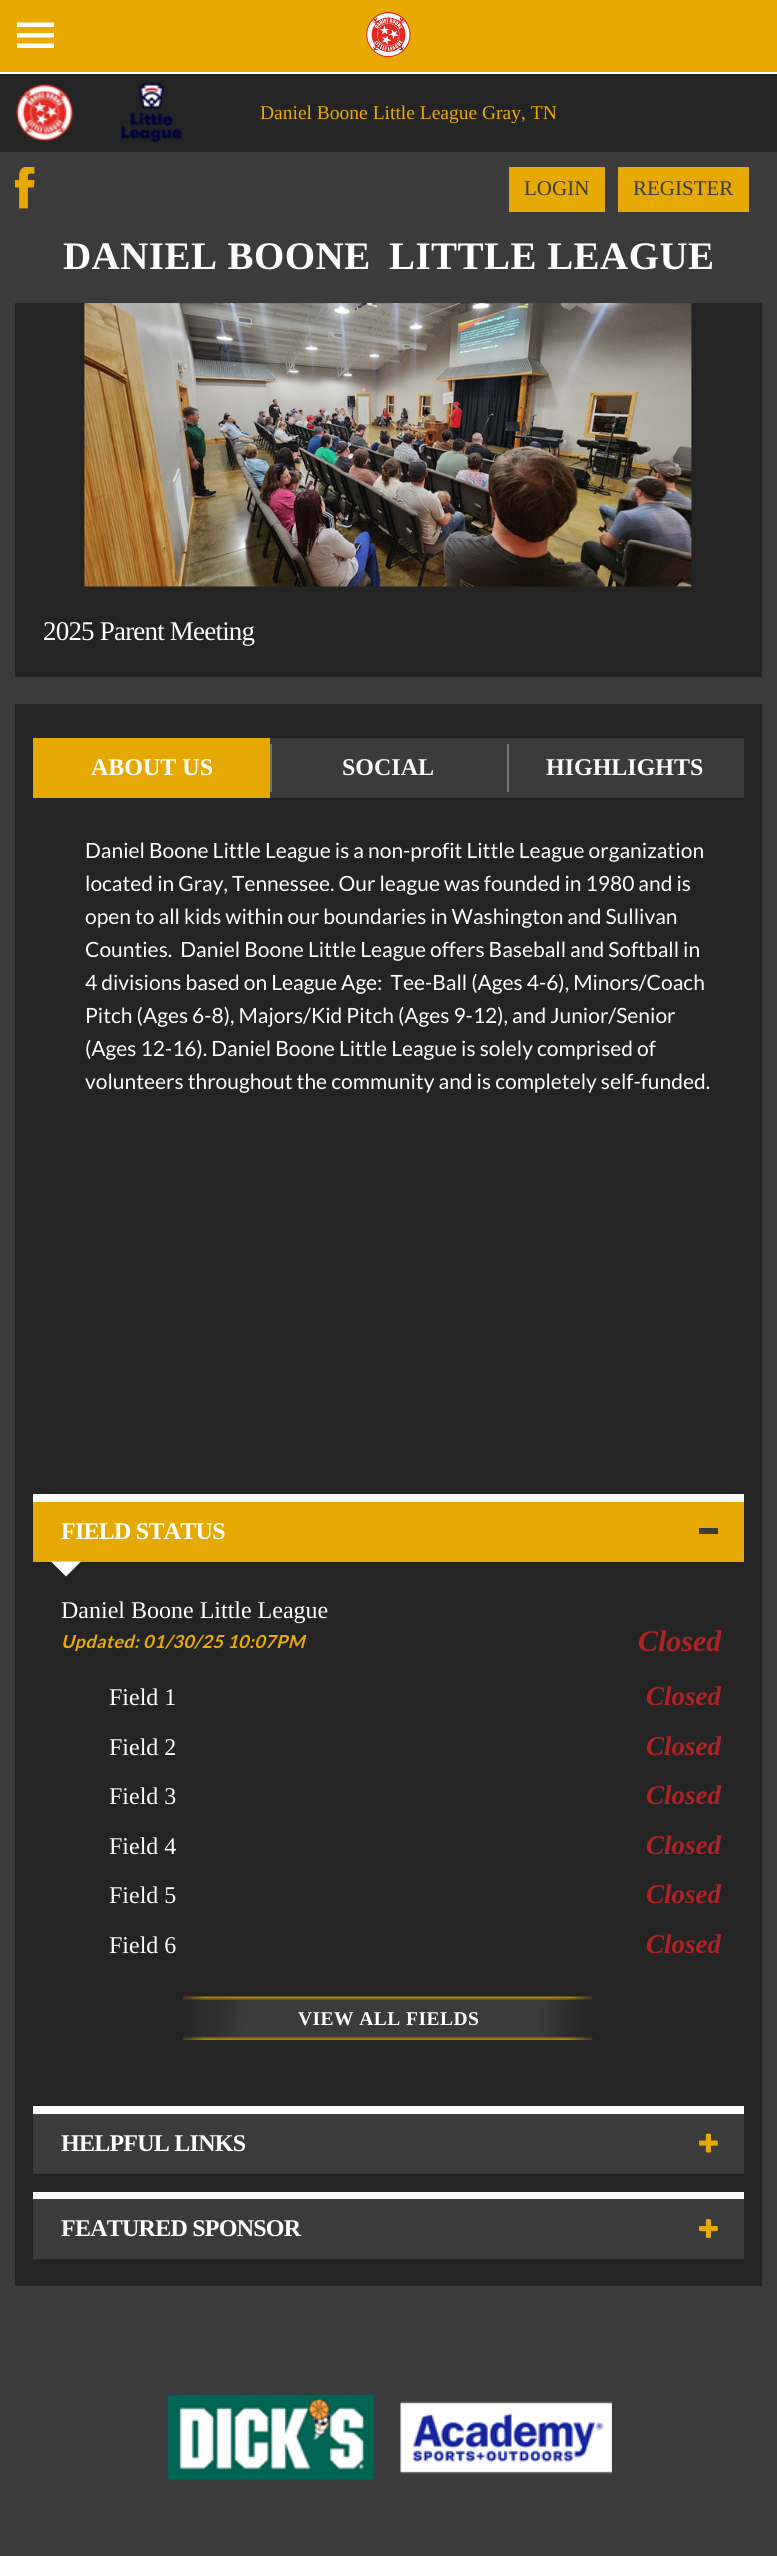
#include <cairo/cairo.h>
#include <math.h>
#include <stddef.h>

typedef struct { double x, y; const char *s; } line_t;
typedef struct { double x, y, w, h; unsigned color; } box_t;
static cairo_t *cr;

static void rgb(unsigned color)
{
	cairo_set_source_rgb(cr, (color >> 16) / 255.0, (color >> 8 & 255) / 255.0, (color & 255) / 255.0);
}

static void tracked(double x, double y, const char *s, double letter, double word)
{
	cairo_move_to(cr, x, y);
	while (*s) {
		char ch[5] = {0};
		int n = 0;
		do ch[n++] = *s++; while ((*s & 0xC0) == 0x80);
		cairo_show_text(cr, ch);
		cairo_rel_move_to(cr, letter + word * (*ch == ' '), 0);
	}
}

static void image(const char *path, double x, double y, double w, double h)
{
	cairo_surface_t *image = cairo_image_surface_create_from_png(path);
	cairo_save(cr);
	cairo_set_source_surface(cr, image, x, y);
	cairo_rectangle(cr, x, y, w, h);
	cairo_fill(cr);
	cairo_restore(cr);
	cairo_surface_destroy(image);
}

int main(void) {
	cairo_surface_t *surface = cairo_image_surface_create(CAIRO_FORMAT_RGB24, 777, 2556);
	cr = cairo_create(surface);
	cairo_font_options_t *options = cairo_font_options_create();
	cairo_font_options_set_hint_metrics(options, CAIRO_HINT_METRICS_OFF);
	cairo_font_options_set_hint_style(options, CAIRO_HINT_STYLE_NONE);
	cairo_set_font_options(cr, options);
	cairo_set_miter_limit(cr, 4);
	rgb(0x3b3b3b);
	cairo_paint(cr);
	rgb(0xe8aa02);
	cairo_rectangle(cr, 0, 0, 777, 72);
	cairo_fill(cr);
	rgb(0xffffff);
	cairo_rectangle(cr, 0, 72, 777, 2);
	cairo_fill(cr);
	cairo_save(cr);
	cairo_rectangle(cr, 17, 17, 37, 37);
	cairo_clip(cr);
	cairo_new_path(cr);
	cairo_move_to(cr, 16.5, 22.5);
	cairo_line_to(cr, 54, 22.5);
	cairo_line_to(cr, 54, 27);
	cairo_line_to(cr, 16.5, 27);
	cairo_close_path(cr);
	cairo_move_to(cr, 16.5, 33);
	cairo_line_to(cr, 54, 33);
	cairo_line_to(cr, 54, 37.5);
	cairo_line_to(cr, 16.5, 37.5);
	cairo_close_path(cr);
	cairo_move_to(cr, 16.5, 43.5);
	cairo_line_to(cr, 54, 43.5);
	cairo_line_to(cr, 54, 48);
	cairo_line_to(cr, 16.5, 48);
	cairo_close_path(cr);
	cairo_fill(cr);
	cairo_restore(cr);
	image("img/1.png", 366, 11, 45, 47);
	rgb(0x242424);
	cairo_rectangle(cr, 0, 74, 777, 78);
	cairo_fill(cr);
	image("img/2.png", 16, 83, 58, 59);
	image("img/3.png", 121, 82, 61, 61);
	image("img/4.png", 15, 167, 20, 42);
	{
		static const box_t items[] = {
			{509, 167, 96, 45, 0xe6a903},
			{618, 167, 131, 45, 0xe6a903},
			{15, 303, 747, 374, 0x242424},
		};
		for (size_t i = 0; i < sizeof items / sizeof *items; i++) {
			rgb(items[i].color);
			cairo_rectangle(cr, items[i].x, items[i].y, items[i].w, items[i].h);
			cairo_fill(cr);
		}
	}
	image("img/5.png", 84, 303, 608, 284);
	{
		static const box_t items[] = {
			{15, 704, 747, 1582, 0x242424},
			{270, 738, 474, 60, 0x3b3b3b},
			{33, 738, 237, 60, 0xe6a903},
			{270, 744, 2, 48, 0x767676},
			{507, 744, 2, 48, 0x767676},
			{33, 1502, 711, 60, 0xe6a903},
			{33, 1494, 711, 8, 0xffffff},
			{699, 1528, 19, 6, 0x3b3b3b},
		};
		for (size_t i = 0; i < sizeof items / sizeof *items; i++) {
			rgb(items[i].color);
			cairo_rectangle(cr, items[i].x, items[i].y, items[i].w, items[i].h);
			cairo_fill(cr);
		}
	}
	rgb(0xffffff);
	cairo_new_path(cr);
	cairo_move_to(cr, 51, 1561.5);
	cairo_line_to(cr, 81, 1561.5);
	cairo_line_to(cr, 66, 1576.5);
	cairo_close_path(cr);
	cairo_fill(cr);
	image("img/6.png", 183, 1996, 410, 44);
	rgb(0x3b3b3b);
	cairo_rectangle(cr, 33, 2114, 711, 60);
	cairo_fill(cr);
	rgb(0xffffff);
	cairo_rectangle(cr, 33, 2106, 711, 8);
	cairo_fill(cr);
	image("img/7.png", 699, 2133, 19, 20);
	rgb(0x3b3b3b);
	cairo_rectangle(cr, 33, 2199, 711, 60);
	cairo_fill(cr);
	rgb(0xffffff);
	cairo_rectangle(cr, 33, 2192, 711, 7);
	cairo_fill(cr);
	image("img/8.png", 699, 2219, 19, 19);
	image("img/9.png", 167, 2394, 208, 87);
	image("img/10.png", 400, 2401, 212, 73);
	cairo_select_font_face(cr, "Liberation Serif", CAIRO_FONT_SLANT_NORMAL, CAIRO_FONT_WEIGHT_NORMAL);
	cairo_set_font_size(cr, 19.5);
	rgb(0xe8aa02);
	cairo_move_to(cr, 260, 119);
	cairo_show_text(cr, "Daniel Boone Little League Gray, TN");
	cairo_set_font_size(cr, 21);
	rgb(0x3b3b3b);
	cairo_move_to(cr, 524, 195);
	cairo_show_text(cr, "LOGIN");
	cairo_move_to(cr, 633, 195);
	cairo_show_text(cr, "REGISTER");
	cairo_select_font_face(cr, "Liberation Serif", CAIRO_FONT_SLANT_NORMAL, CAIRO_FONT_WEIGHT_BOLD);
	cairo_set_font_size(cr, 39);
	rgb(0xffffff);
	tracked(63, 269, "DANIEL BOONE", 0.45, 0);
	tracked(389, 269, "LITTLE LEAGUE", 0.45, 0);
	cairo_select_font_face(cr, "Liberation Serif", CAIRO_FONT_SLANT_NORMAL, CAIRO_FONT_WEIGHT_NORMAL);
	cairo_set_font_size(cr, 27);
	tracked(43, 640, "2025 Parent Meeting", -0.8, 0);
	cairo_select_font_face(cr, "Liberation Serif", CAIRO_FONT_SLANT_NORMAL, CAIRO_FONT_WEIGHT_BOLD);
	cairo_set_font_size(cr, 24);
	{
		static const line_t items[] = {
			{91, 775, "ABOUT US"},
			{342, 775, "SOCIAL"},
			{546, 775, "HIGHLIGHTS"},
		};
		for (size_t i = 0; i < sizeof items / sizeof *items; i++) {
			cairo_move_to(cr, items[i].x, items[i].y);
			cairo_show_text(cr, items[i].s);
		}
	}
	cairo_select_font_face(cr, "Lato", CAIRO_FONT_SLANT_NORMAL, CAIRO_FONT_WEIGHT_NORMAL);
	cairo_set_font_size(cr, 21);
	{
		static const line_t items[] = {
			{85, 858, "Daniel Boone Little League is a non-profit Little League organization"},
			{85, 891, "located in Gray, Tennessee. Our league was founded in 1980 and is"},
			{85, 924, "open to all kids within our boundaries in Washington and Sullivan"},
			{85, 957, "Counties.  Daniel Boone Little League offers Baseball and Softball in"},
			{85, 990, "4 divisions based on League Age:  Tee-Ball (Ages 4-6), Minors/Coach"},
			{85, 1023, "Pitch (Ages 6-8), Majors/Kid Pitch (Ages 9-12), and Junior/Senior"},
			{85, 1056, "(Ages 12-16). Daniel Boone Little League is solely comprised of"},
			{85, 1089, "volunteers throughout the community and is completely self-funded."},
		};
		for (size_t i = 0; i < sizeof items / sizeof *items; i++) {
			cairo_move_to(cr, items[i].x, items[i].y);
			cairo_show_text(cr, items[i].s);
		}
	}
	cairo_select_font_face(cr, "Liberation Serif", CAIRO_FONT_SLANT_NORMAL, CAIRO_FONT_WEIGHT_BOLD);
	cairo_set_font_size(cr, 24);
	tracked(61, 1539, "FIELD STATUS", -0.75, 0);
	cairo_select_font_face(cr, "Liberation Serif", CAIRO_FONT_SLANT_NORMAL, CAIRO_FONT_WEIGHT_NORMAL);
	cairo_move_to(cr, 61, 1618);
	cairo_show_text(cr, "Daniel Boone Little League");
	cairo_select_font_face(cr, "Lato", CAIRO_FONT_SLANT_ITALIC, CAIRO_FONT_WEIGHT_BOLD);
	cairo_set_font_size(cr, 18);
	rgb(0xe8aa02);
	tracked(61, 1648, "Updated: 01/30/25 10:07PM", 0.45, 0);
	cairo_select_font_face(cr, "Liberation Serif", CAIRO_FONT_SLANT_ITALIC, CAIRO_FONT_WEIGHT_BOLD);
	cairo_set_font_size(cr, 30);
	rgb(0xaf2324);
	cairo_move_to(cr, 638, 1651);
	cairo_show_text(cr, "Closed");
	cairo_select_font_face(cr, "Liberation Serif", CAIRO_FONT_SLANT_NORMAL, CAIRO_FONT_WEIGHT_NORMAL);
	cairo_set_font_size(cr, 24);
	rgb(0xffffff);
	cairo_move_to(cr, 109, 1705);
	cairo_show_text(cr, "Field 1");
	cairo_select_font_face(cr, "Liberation Serif", CAIRO_FONT_SLANT_ITALIC, CAIRO_FONT_WEIGHT_BOLD);
	cairo_set_font_size(cr, 27);
	rgb(0xaf2324);
	cairo_move_to(cr, 646, 1705);
	cairo_show_text(cr, "Closed");
	cairo_select_font_face(cr, "Liberation Serif", CAIRO_FONT_SLANT_NORMAL, CAIRO_FONT_WEIGHT_NORMAL);
	cairo_set_font_size(cr, 24);
	rgb(0xffffff);
	cairo_move_to(cr, 109, 1755);
	cairo_show_text(cr, "Field 2");
	cairo_select_font_face(cr, "Liberation Serif", CAIRO_FONT_SLANT_ITALIC, CAIRO_FONT_WEIGHT_BOLD);
	cairo_set_font_size(cr, 27);
	rgb(0xaf2324);
	cairo_move_to(cr, 646, 1755);
	cairo_show_text(cr, "Closed");
	cairo_select_font_face(cr, "Liberation Serif", CAIRO_FONT_SLANT_NORMAL, CAIRO_FONT_WEIGHT_NORMAL);
	cairo_set_font_size(cr, 24);
	rgb(0xffffff);
	cairo_move_to(cr, 109, 1804);
	cairo_show_text(cr, "Field 3");
	cairo_select_font_face(cr, "Liberation Serif", CAIRO_FONT_SLANT_ITALIC, CAIRO_FONT_WEIGHT_BOLD);
	cairo_set_font_size(cr, 27);
	rgb(0xaf2324);
	cairo_move_to(cr, 646, 1804);
	cairo_show_text(cr, "Closed");
	cairo_select_font_face(cr, "Liberation Serif", CAIRO_FONT_SLANT_NORMAL, CAIRO_FONT_WEIGHT_NORMAL);
	cairo_set_font_size(cr, 24);
	rgb(0xffffff);
	cairo_move_to(cr, 109, 1854);
	cairo_show_text(cr, "Field 4");
	cairo_select_font_face(cr, "Liberation Serif", CAIRO_FONT_SLANT_ITALIC, CAIRO_FONT_WEIGHT_BOLD);
	cairo_set_font_size(cr, 27);
	rgb(0xaf2324);
	cairo_move_to(cr, 646, 1854);
	cairo_show_text(cr, "Closed");
	cairo_select_font_face(cr, "Liberation Serif", CAIRO_FONT_SLANT_NORMAL, CAIRO_FONT_WEIGHT_NORMAL);
	cairo_set_font_size(cr, 24);
	rgb(0xffffff);
	cairo_move_to(cr, 109, 1903);
	cairo_show_text(cr, "Field 5");
	cairo_select_font_face(cr, "Liberation Serif", CAIRO_FONT_SLANT_ITALIC, CAIRO_FONT_WEIGHT_BOLD);
	cairo_set_font_size(cr, 27);
	rgb(0xaf2324);
	cairo_move_to(cr, 646, 1903);
	cairo_show_text(cr, "Closed");
	cairo_select_font_face(cr, "Liberation Serif", CAIRO_FONT_SLANT_NORMAL, CAIRO_FONT_WEIGHT_NORMAL);
	cairo_set_font_size(cr, 24);
	rgb(0xffffff);
	cairo_move_to(cr, 109, 1953);
	cairo_show_text(cr, "Field 6");
	cairo_select_font_face(cr, "Liberation Serif", CAIRO_FONT_SLANT_ITALIC, CAIRO_FONT_WEIGHT_BOLD);
	cairo_set_font_size(cr, 27);
	rgb(0xaf2324);
	cairo_move_to(cr, 646, 1953);
	cairo_show_text(cr, "Closed");
	cairo_select_font_face(cr, "Liberation Serif", CAIRO_FONT_SLANT_NORMAL, CAIRO_FONT_WEIGHT_BOLD);
	cairo_set_font_size(cr, 19.5);
	rgb(0xffffff);
	tracked(298, 2025, "VIEW ALL FIELDS", 0.45, 0);
	cairo_set_font_size(cr, 24);
	tracked(61, 2151, "HELPFUL LINKS", -0.75, 0);
	tracked(61, 2236, "FEATURED SPONSOR", -0.75, 0);
	cairo_surface_write_to_png(surface, "page.png");
	cairo_font_options_destroy(options);
	cairo_destroy(cr);
	cairo_surface_destroy(surface);
	return 0;
}
